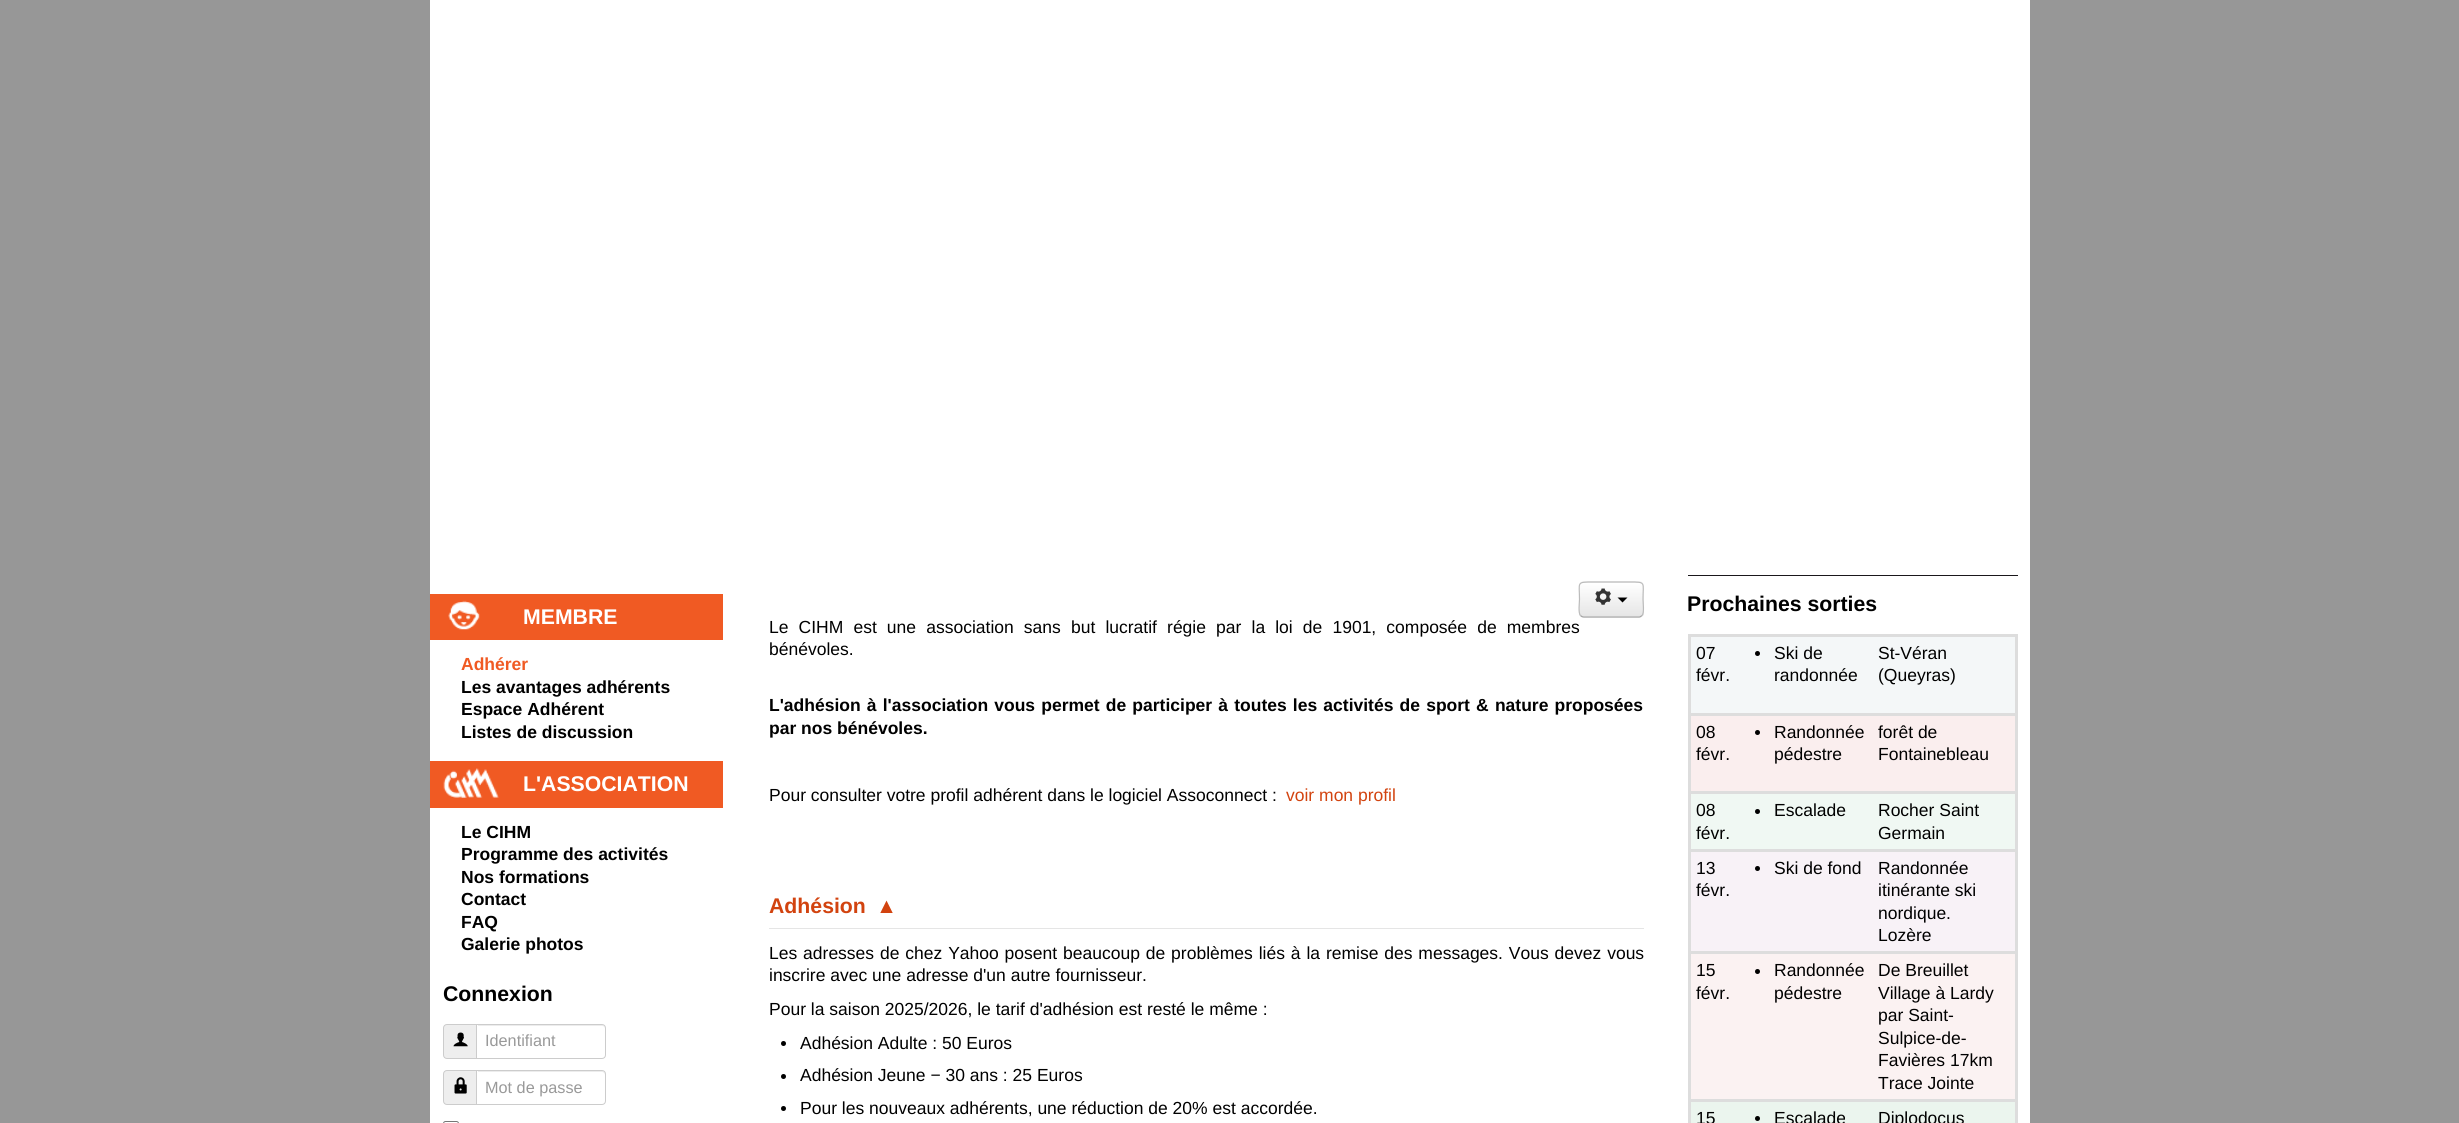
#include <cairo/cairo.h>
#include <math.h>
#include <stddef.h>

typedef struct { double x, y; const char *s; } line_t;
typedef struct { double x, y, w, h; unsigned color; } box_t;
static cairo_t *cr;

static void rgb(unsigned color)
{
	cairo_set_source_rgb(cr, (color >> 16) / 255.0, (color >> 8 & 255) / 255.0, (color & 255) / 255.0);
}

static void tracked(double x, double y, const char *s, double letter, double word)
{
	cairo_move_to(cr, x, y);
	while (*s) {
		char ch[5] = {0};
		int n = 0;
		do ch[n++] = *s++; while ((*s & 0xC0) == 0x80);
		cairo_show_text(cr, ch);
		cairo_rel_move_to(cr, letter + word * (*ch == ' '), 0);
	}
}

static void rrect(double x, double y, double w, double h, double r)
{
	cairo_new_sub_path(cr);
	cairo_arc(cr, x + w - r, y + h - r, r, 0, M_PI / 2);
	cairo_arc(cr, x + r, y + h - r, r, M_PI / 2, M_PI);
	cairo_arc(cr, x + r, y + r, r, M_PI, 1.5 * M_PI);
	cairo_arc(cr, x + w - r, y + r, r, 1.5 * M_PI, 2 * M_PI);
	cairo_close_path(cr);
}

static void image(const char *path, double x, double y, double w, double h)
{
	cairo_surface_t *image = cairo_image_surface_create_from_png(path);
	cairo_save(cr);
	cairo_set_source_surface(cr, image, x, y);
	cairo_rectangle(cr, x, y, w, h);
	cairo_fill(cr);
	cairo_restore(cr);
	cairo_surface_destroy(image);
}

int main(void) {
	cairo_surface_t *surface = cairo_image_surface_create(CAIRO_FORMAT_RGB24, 2459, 1123);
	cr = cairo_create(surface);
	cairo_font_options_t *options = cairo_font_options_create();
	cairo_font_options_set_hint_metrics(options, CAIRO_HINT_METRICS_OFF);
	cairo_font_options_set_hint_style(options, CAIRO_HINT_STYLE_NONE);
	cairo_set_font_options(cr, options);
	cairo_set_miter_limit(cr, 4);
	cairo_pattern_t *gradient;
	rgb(0x979797);
	cairo_paint(cr);
	rgb(0xffffff);
	cairo_rectangle(cr, 430, 0, 1600, 1123);
	cairo_fill(cr);
	rgb(0xf05a23);
	cairo_rectangle(cr, 430, 594, 293, 46);
	cairo_fill(cr);
	image("img/1.png", 448, 600, 32, 30);
	cairo_rectangle(cr, 430, 761, 293, 47);
	cairo_fill(cr);
	image("img/2.png", 443, 768, 56, 30);
	rgb(0xeeeeee);
	cairo_new_path(cr);
	cairo_move_to(cr, 447, 1024.5);
	cairo_line_to(cr, 477.5, 1024.5);
	cairo_line_to(cr, 477.5, 1058.5);
	cairo_line_to(cr, 447, 1058.5);
	cairo_curve_to(cr, 445, 1058.5, 443.5, 1057, 443.5, 1055);
	cairo_line_to(cr, 443.5, 1028);
	cairo_curve_to(cr, 443.5, 1026, 445, 1024.5, 447, 1024.5);
	cairo_close_path(cr);
	cairo_fill_preserve(cr);
	rgb(0xcccccc);
	cairo_set_line_width(cr, 1);
	cairo_stroke(cr);
	image("img/3.png", 453, 1032, 15, 15);
	rgb(0xffffff);
	cairo_new_path(cr);
	cairo_move_to(cr, 476, 1024);
	cairo_line_to(cr, 602, 1024);
	cairo_curve_to(cr, 604, 1024, 606, 1026, 606, 1028);
	cairo_line_to(cr, 606, 1055);
	cairo_curve_to(cr, 606, 1057, 604, 1059, 602, 1059);
	cairo_line_to(cr, 476, 1059);
	cairo_close_path(cr);
	cairo_fill(cr);
	rgb(0xececec);
	cairo_new_path(cr);
	cairo_move_to(cr, 478, 1026);
	cairo_line_to(cr, 602, 1026);
	cairo_curve_to(cr, 604, 1026, 605, 1027, 605, 1029);
	cairo_line_to(cr, 605, 1028);
	cairo_curve_to(cr, 605, 1026, 604, 1025, 602, 1025);
	cairo_line_to(cr, 478, 1025);
	cairo_close_path(cr);
	cairo_fill(cr);
	cairo_new_path(cr);
	cairo_move_to(cr, 476.5, 1024.5);
	cairo_line_to(cr, 602, 1024.5);
	cairo_curve_to(cr, 604, 1024.5, 605.5, 1026, 605.5, 1028);
	cairo_line_to(cr, 605.5, 1055);
	cairo_curve_to(cr, 605.5, 1057, 604, 1058.5, 602, 1058.5);
	cairo_line_to(cr, 476.5, 1058.5);
	cairo_close_path(cr);
	rgb(0xcccccc);
	cairo_stroke(cr);
	rgb(0xeeeeee);
	cairo_new_path(cr);
	cairo_move_to(cr, 447, 1070.5);
	cairo_line_to(cr, 477.5, 1070.5);
	cairo_line_to(cr, 477.5, 1104.5);
	cairo_line_to(cr, 447, 1104.5);
	cairo_curve_to(cr, 445, 1104.5, 443.5, 1103, 443.5, 1101);
	cairo_line_to(cr, 443.5, 1074);
	cairo_curve_to(cr, 443.5, 1072, 445, 1070.5, 447, 1070.5);
	cairo_close_path(cr);
	cairo_fill_preserve(cr);
	rgb(0xcccccc);
	cairo_stroke(cr);
	image("img/4.png", 454, 1077, 13, 17);
	rgb(0xffffff);
	cairo_new_path(cr);
	cairo_move_to(cr, 476, 1070);
	cairo_line_to(cr, 602, 1070);
	cairo_curve_to(cr, 604, 1070, 606, 1072, 606, 1074);
	cairo_line_to(cr, 606, 1101);
	cairo_curve_to(cr, 606, 1103, 604, 1105, 602, 1105);
	cairo_line_to(cr, 476, 1105);
	cairo_close_path(cr);
	cairo_fill(cr);
	rgb(0xececec);
	cairo_new_path(cr);
	cairo_move_to(cr, 478, 1072);
	cairo_line_to(cr, 602, 1072);
	cairo_curve_to(cr, 604, 1072, 605, 1074, 605, 1075);
	cairo_line_to(cr, 605, 1074);
	cairo_curve_to(cr, 605, 1072, 604, 1071, 602, 1071);
	cairo_line_to(cr, 478, 1071);
	cairo_close_path(cr);
	cairo_fill(cr);
	cairo_new_path(cr);
	cairo_move_to(cr, 476.5, 1070.5);
	cairo_line_to(cr, 602, 1070.5);
	cairo_curve_to(cr, 604, 1070.5, 605.5, 1072, 605.5, 1074);
	cairo_line_to(cr, 605.5, 1101);
	cairo_curve_to(cr, 605.5, 1103, 604, 1104.5, 602, 1104.5);
	cairo_line_to(cr, 476.5, 1104.5);
	cairo_close_path(cr);
	rgb(0xcccccc);
	cairo_stroke(cr);
	rrect(443.5, 1121.5, 15, 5, 2);
	rgb(0x767676);
	cairo_stroke(cr);
	rgb(0xf5f5f5);
	rrect(1579, 581, 65, 37, 5);
	cairo_fill(cr);
	cairo_save(cr);
	rrect(1579, 581, 65, 37, 5);
	cairo_clip(cr);
	gradient = cairo_pattern_create_linear(1611, 583, 1611, 616);
	cairo_pattern_add_color_stop_rgba(gradient, 0, 1, 1, 1, 1);
	cairo_pattern_add_color_stop_rgba(gradient, 1, 0.902, 0.902, 0.902, 1);
	cairo_set_source(cr, gradient);
	cairo_pattern_destroy(gradient);
	cairo_rectangle(cr, 1579, 583, 65, 33);
	cairo_fill(cr);
	cairo_restore(cr);
	cairo_new_path(cr);
	cairo_move_to(cr, 1642, 615.5);
	cairo_curve_to(cr, 1641, 616.5, 1640, 617, 1639, 617);
	cairo_line_to(cr, 1584, 617);
	cairo_curve_to(cr, 1582.5, 617, 1581.5, 616.5, 1580.5, 615.5);
	rgb(0xa2a2a2);
	cairo_set_line_width(cr, 1.2);
	cairo_stroke(cr);
	cairo_new_path(cr);
	cairo_move_to(cr, 1580.5, 615.5);
	cairo_curve_to(cr, 1578, 613, 1579.5, 602.5, 1579.5, 599.5);
	cairo_curve_to(cr, 1579.5, 582, 1576, 582, 1593, 582);
	cairo_line_to(cr, 1629.5, 582);
	cairo_curve_to(cr, 1646.5, 582, 1643, 582, 1643, 599.5);
	cairo_curve_to(cr, 1643, 602.5, 1644.5, 613, 1642, 615.5);
	rgb(0xbbbbbb);
	cairo_stroke(cr);
	image("img/5.png", 1595, 588, 16, 17);
	rgb(0x000000);
	cairo_new_path(cr);
	cairo_move_to(cr, 1617.5, 597.5);
	cairo_line_to(cr, 1627.5, 597.5);
	cairo_line_to(cr, 1622.5, 602.5);
	cairo_close_path(cr);
	cairo_fill(cr);
	rgb(0xe5e5e5);
	cairo_rectangle(cr, 769, 928, 875, 1);
	cairo_fill(cr);
	rgb(0x000000);
	cairo_arc(cr, 783.5, 1043.5, 2.5, 0, 2 * M_PI);
	cairo_fill(cr);
	cairo_arc(cr, 783.5, 1076.5, 2.5, 0, 2 * M_PI);
	cairo_fill(cr);
	cairo_arc(cr, 783.5, 1108.5, 2.5, 0, 2 * M_PI);
	cairo_fill(cr);
	{
		static const box_t items[] = {
			{1688, 575, 330, 1, 0x1a171b},
			{1688, 634, 330, 3, 0xdddddd},
			{2015, 634, 3, 489, 0xdddddd},
			{1688, 634, 3, 489, 0xdddddd},
			{1691, 637, 324, 76, 0xf4f7f8},
		};
		for (size_t i = 0; i < sizeof items / sizeof *items; i++) {
			rgb(items[i].color);
			cairo_rectangle(cr, items[i].x, items[i].y, items[i].w, items[i].h);
			cairo_fill(cr);
		}
	}
	rgb(0x000000);
	cairo_arc(cr, 1757.5, 653.5, 2.5, 0, 2 * M_PI);
	cairo_fill(cr);
	rgb(0xdddddd);
	cairo_rectangle(cr, 1688, 713, 330, 3);
	cairo_fill(cr);
	rgb(0xfaeeee);
	cairo_rectangle(cr, 1691, 716, 324, 75);
	cairo_fill(cr);
	rgb(0x000000);
	cairo_arc(cr, 1757.5, 732.5, 2.5, 0, 2 * M_PI);
	cairo_fill(cr);
	rgb(0xdddddd);
	cairo_rectangle(cr, 1688, 791, 330, 3);
	cairo_fill(cr);
	rgb(0xf0f8f3);
	cairo_rectangle(cr, 1691, 794, 324, 55);
	cairo_fill(cr);
	rgb(0x000000);
	cairo_arc(cr, 1757.5, 811.5, 2.5, 0, 2 * M_PI);
	cairo_fill(cr);
	rgb(0xdddddd);
	cairo_rectangle(cr, 1688, 849, 330, 3);
	cairo_fill(cr);
	rgb(0xf8f2f7);
	cairo_rectangle(cr, 1691, 852, 324, 99);
	cairo_fill(cr);
	rgb(0x000000);
	cairo_arc(cr, 1757.5, 868.5, 2.5, 0, 2 * M_PI);
	cairo_fill(cr);
	rgb(0xdddddd);
	cairo_rectangle(cr, 1688, 951, 330, 3);
	cairo_fill(cr);
	rgb(0xfbf2f2);
	cairo_rectangle(cr, 1691, 954, 324, 145);
	cairo_fill(cr);
	rgb(0x000000);
	cairo_arc(cr, 1757.5, 971.5, 2.5, 0, 2 * M_PI);
	cairo_fill(cr);
	rgb(0xdddddd);
	cairo_rectangle(cr, 1688, 1099, 330, 3);
	cairo_fill(cr);
	rgb(0xebf5ee);
	cairo_rectangle(cr, 1691, 1102, 324, 21);
	cairo_fill(cr);
	rgb(0x000000);
	cairo_arc(cr, 1757.5, 1118.5, 2.5, 0, 2 * M_PI);
	cairo_fill(cr);
	cairo_select_font_face(cr, "Liberation Sans", CAIRO_FONT_SLANT_NORMAL, CAIRO_FONT_WEIGHT_BOLD);
	cairo_set_font_size(cr, 21.25);
	rgb(0xffffff);
	cairo_move_to(cr, 523, 624);
	cairo_show_text(cr, "MEMBRE");
	cairo_set_font_size(cr, 17.5);
	rgb(0xf05a23);
	cairo_move_to(cr, 461, 670);
	cairo_show_text(cr, "Adhérer");
	rgb(0x000000);
	{
		static const line_t items[] = {
			{461, 693, "Les avantages adhérents"},
			{461, 715, "Espace Adhérent"},
			{461, 738, "Listes de discussion"},
		};
		for (size_t i = 0; i < sizeof items / sizeof *items; i++) {
			cairo_move_to(cr, items[i].x, items[i].y);
			cairo_show_text(cr, items[i].s);
		}
	}
	cairo_set_font_size(cr, 21.25);
	rgb(0xffffff);
	cairo_move_to(cr, 523, 791);
	cairo_show_text(cr, "L'ASSOCIATION");
	cairo_set_font_size(cr, 17.5);
	rgb(0x000000);
	{
		static const line_t items[] = {
			{461, 838, "Le CIHM"},
			{461, 860, "Programme des activités"},
			{461, 883, "Nos formations"},
			{461, 905, "Contact"},
			{461, 928, "FAQ"},
			{461, 950, "Galerie photos"},
		};
		for (size_t i = 0; i < sizeof items / sizeof *items; i++) {
			cairo_move_to(cr, items[i].x, items[i].y);
			cairo_show_text(cr, items[i].s);
		}
	}
	cairo_set_font_size(cr, 21.25);
	cairo_move_to(cr, 443, 1001);
	cairo_show_text(cr, "Connexion");
	cairo_select_font_face(cr, "Liberation Sans", CAIRO_FONT_SLANT_NORMAL, CAIRO_FONT_WEIGHT_NORMAL);
	cairo_set_font_size(cr, 16.25);
	rgb(0x999999);
	cairo_move_to(cr, 485, 1046);
	cairo_show_text(cr, "Identifiant");
	cairo_move_to(cr, 485, 1093);
	cairo_show_text(cr, "Mot de passe");
	cairo_set_font_size(cr, 17.5);
	rgb(0x000000);
	tracked(769, 633, "Le CIHM est une association sans but lucratif régie par la loi de 1901, composée de membres", 0, 5.25);
	cairo_move_to(cr, 769, 655);
	cairo_show_text(cr, "bénévoles.");
	cairo_select_font_face(cr, "Liberation Sans", CAIRO_FONT_SLANT_NORMAL, CAIRO_FONT_WEIGHT_BOLD);
	tracked(769, 711, "L'adhésion à l'association vous permet de participer à toutes les activités de sport & nature proposées", 0, 1.3);
	cairo_move_to(cr, 769, 734);
	cairo_show_text(cr, "par nos bénévoles.");
	cairo_select_font_face(cr, "Liberation Sans", CAIRO_FONT_SLANT_NORMAL, CAIRO_FONT_WEIGHT_NORMAL);
	cairo_move_to(cr, 769, 801);
	cairo_show_text(cr, "Pour consulter votre profil adhérent dans le logiciel Assoconnect :");
	rgb(0xd2430f);
	cairo_move_to(cr, 1286, 801);
	cairo_show_text(cr, "voir mon profil");
	cairo_select_font_face(cr, "Liberation Sans", CAIRO_FONT_SLANT_NORMAL, CAIRO_FONT_WEIGHT_BOLD);
	cairo_set_font_size(cr, 21.25);
	cairo_move_to(cr, 769, 913);
	cairo_show_text(cr, "Adhésion");
	cairo_move_to(cr, 876, 913);
	cairo_show_text(cr, "▲");
	cairo_select_font_face(cr, "Liberation Sans", CAIRO_FONT_SLANT_NORMAL, CAIRO_FONT_WEIGHT_NORMAL);
	cairo_set_font_size(cr, 17.5);
	rgb(0x000000);
	tracked(769, 959, "Les adresses de chez Yahoo posent beaucoup de problèmes liés à la remise des messages. Vous devez vous", 0, 1);
	{
		static const line_t items[] = {
			{769, 981, "inscrire avec une adresse d'un autre fournisseur."},
			{769, 1015, "Pour la saison 2025/2026, le tarif d'adhésion est resté le même :"},
			{800, 1049, "Adhésion Adulte : 50 Euros"},
			{800, 1081, "Adhésion Jeune − 30 ans : 25 Euros"},
			{800, 1114, "Pour les nouveaux adhérents, une réduction de 20% est accordée."},
		};
		for (size_t i = 0; i < sizeof items / sizeof *items; i++) {
			cairo_move_to(cr, items[i].x, items[i].y);
			cairo_show_text(cr, items[i].s);
		}
	}
	cairo_select_font_face(cr, "Liberation Sans", CAIRO_FONT_SLANT_NORMAL, CAIRO_FONT_WEIGHT_BOLD);
	cairo_set_font_size(cr, 21.25);
	cairo_move_to(cr, 1687, 611);
	cairo_show_text(cr, "Prochaines sorties");
	cairo_select_font_face(cr, "Liberation Sans", CAIRO_FONT_SLANT_NORMAL, CAIRO_FONT_WEIGHT_NORMAL);
	cairo_set_font_size(cr, 17.5);
	{
		static const line_t items[] = {
			{1696, 659, "07"},
			{1696, 681, "févr."},
			{1774, 659, "Ski de"},
			{1774, 681, "randonnée"},
			{1878, 659, "St-Véran"},
			{1878, 681, "(Queyras)"},
			{1696, 738, "08"},
			{1696, 760, "févr."},
			{1774, 738, "Randonnée"},
			{1774, 760, "pédestre"},
			{1878, 738, "forêt de"},
			{1878, 760, "Fontainebleau"},
			{1696, 816, "08"},
			{1696, 839, "févr."},
			{1774, 816, "Escalade"},
			{1878, 816, "Rocher Saint"},
			{1878, 839, "Germain"},
			{1696, 874, "13"},
			{1696, 896, "févr."},
			{1774, 874, "Ski de fond"},
			{1878, 874, "Randonnée"},
			{1878, 896, "itinérante ski"},
			{1878, 919, "nordique."},
			{1878, 941, "Lozère"},
			{1696, 976, "15"},
			{1696, 999, "févr."},
			{1774, 976, "Randonnée"},
			{1774, 999, "pédestre"},
			{1878, 976, "De Breuillet"},
			{1878, 999, "Village à Lardy"},
			{1878, 1021, "par Saint-"},
			{1878, 1044, "Sulpice-de-"},
			{1878, 1066, "Favières 17km"},
			{1878, 1089, "Trace Jointe"},
			{1696, 1124, "15"},
			{1774, 1124, "Escalade"},
			{1878, 1124, "Diplodocus"},
		};
		for (size_t i = 0; i < sizeof items / sizeof *items; i++) {
			cairo_move_to(cr, items[i].x, items[i].y);
			cairo_show_text(cr, items[i].s);
		}
	}
	cairo_surface_write_to_png(surface, "page.png");
	cairo_font_options_destroy(options);
	cairo_destroy(cr);
	cairo_surface_destroy(surface);
	return 0;
}
